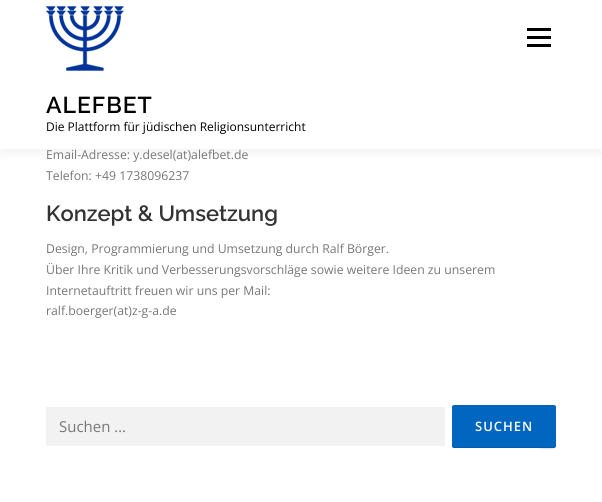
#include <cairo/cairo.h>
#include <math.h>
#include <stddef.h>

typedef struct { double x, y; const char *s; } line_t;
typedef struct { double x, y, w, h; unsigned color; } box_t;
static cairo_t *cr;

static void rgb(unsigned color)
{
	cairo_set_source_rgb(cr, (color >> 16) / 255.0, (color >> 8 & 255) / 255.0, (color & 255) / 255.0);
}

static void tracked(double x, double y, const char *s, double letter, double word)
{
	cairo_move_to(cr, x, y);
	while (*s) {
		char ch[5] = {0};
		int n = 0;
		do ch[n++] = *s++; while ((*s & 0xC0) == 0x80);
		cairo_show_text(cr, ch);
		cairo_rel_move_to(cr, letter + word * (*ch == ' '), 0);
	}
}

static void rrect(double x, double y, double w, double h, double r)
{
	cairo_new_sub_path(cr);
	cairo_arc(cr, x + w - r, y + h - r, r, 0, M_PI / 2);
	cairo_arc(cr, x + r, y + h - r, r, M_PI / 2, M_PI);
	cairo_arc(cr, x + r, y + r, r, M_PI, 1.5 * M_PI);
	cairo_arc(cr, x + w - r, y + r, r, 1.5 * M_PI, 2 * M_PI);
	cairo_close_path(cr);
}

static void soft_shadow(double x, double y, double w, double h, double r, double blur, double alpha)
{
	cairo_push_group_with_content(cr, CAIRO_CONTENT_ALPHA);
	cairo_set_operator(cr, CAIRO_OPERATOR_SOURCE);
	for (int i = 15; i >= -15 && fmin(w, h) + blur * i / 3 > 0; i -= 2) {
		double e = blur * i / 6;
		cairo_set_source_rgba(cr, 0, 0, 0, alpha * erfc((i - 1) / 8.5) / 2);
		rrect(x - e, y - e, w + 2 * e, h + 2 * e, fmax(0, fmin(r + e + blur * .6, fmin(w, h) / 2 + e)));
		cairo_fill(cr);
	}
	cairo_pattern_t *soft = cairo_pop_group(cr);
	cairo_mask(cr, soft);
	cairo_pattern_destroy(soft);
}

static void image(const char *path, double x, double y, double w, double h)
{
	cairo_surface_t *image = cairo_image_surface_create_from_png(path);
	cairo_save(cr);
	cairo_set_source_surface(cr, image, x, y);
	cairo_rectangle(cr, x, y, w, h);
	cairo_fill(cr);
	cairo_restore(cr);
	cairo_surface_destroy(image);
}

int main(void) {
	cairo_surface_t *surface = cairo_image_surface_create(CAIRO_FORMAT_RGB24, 602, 502);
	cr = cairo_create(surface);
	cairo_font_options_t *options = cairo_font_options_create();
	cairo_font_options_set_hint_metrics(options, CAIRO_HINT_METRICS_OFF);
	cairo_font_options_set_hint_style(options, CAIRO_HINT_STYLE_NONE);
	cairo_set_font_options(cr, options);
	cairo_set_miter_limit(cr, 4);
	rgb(0xffffff);
	cairo_paint(cr);
	rgb(0x323232);
	soft_shadow(0, 5, 602, 149, 0, 5, 0.06);
	{
		static const box_t items[] = {
			{0, 1, 602, 148, 0xffffff},
			{527, 36, 24, 3, 0x000000},
			{527, 28, 24, 3, 0x000000},
			{527, 44, 24, 3, 0x000000},
		};
		for (size_t i = 0; i < sizeof items / sizeof *items; i++) {
			rgb(items[i].color);
			cairo_rectangle(cr, items[i].x, items[i].y, items[i].w, items[i].h);
			cairo_fill(cr);
		}
	}
	image("img/1.png", 46, 6, 78, 65);
	rgb(0xf2f2f2);
	cairo_rectangle(cr, 46, 407, 399, 39);
	cairo_fill(cr);
	rgb(0x0066bf);
	rrect(452, 405, 104, 43, 2);
	cairo_fill(cr);
	cairo_set_source_rgba(cr, 0, 0, 0, 0.1);
	cairo_new_path(cr);
	cairo_move_to(cr, 452, 445);
	cairo_curve_to(cr, 452, 446, 452, 448, 454, 448);
	cairo_line_to(cr, 537, 448);
	cairo_curve_to(cr, 538, 448, 556, 453, 556, 445);
	cairo_curve_to(cr, 556, 446, 555, 447, 554, 447);
	cairo_line_to(cr, 454, 447);
	cairo_curve_to(cr, 453, 447, 452, 446, 452, 445);
	cairo_close_path(cr);
	cairo_fill(cr);
	cairo_select_font_face(cr, "Raleway SemiBold", CAIRO_FONT_SLANT_NORMAL, CAIRO_FONT_WEIGHT_NORMAL);
	cairo_set_font_size(cr, 23);
	rgb(0x000000);
	tracked(46, 113, "ALEFBET", 1, 0);
	cairo_select_font_face(cr, "Open Sans", CAIRO_FONT_SLANT_NORMAL, CAIRO_FONT_WEIGHT_NORMAL);
	cairo_set_font_size(cr, 12);
	cairo_move_to(cr, 46, 131);
	cairo_show_text(cr, "Die Plattform für jüdischen Religionsunterricht");
	cairo_set_font_size(cr, 12.25);
	rgb(0x777777);
	cairo_move_to(cr, 46, 159);
	cairo_show_text(cr, "Email-Adresse: y.desel(at)alefbet.de");
	cairo_move_to(cr, 46, 180);
	cairo_show_text(cr, "Telefon: +49 1738096237");
	cairo_select_font_face(cr, "Raleway SemiBold", CAIRO_FONT_SLANT_NORMAL, CAIRO_FONT_WEIGHT_NORMAL);
	cairo_set_font_size(cr, 21.9);
	rgb(0x333333);
	cairo_move_to(cr, 46, 221);
	cairo_show_text(cr, "Konzept & Umsetzung");
	cairo_select_font_face(cr, "Open Sans", CAIRO_FONT_SLANT_NORMAL, CAIRO_FONT_WEIGHT_NORMAL);
	cairo_set_font_size(cr, 12.25);
	rgb(0x777777);
	{
		static const line_t items[] = {
			{46, 253, "Design, Programmierung und Umsetzung durch Ralf Börger."},
			{46, 274, "Über Ihre Kritik und Verbesserungsvorschläge sowie weitere Ideen zu unserem"},
			{46, 295, "Internetauftritt freuen wir uns per Mail:"},
			{46, 315, "ralf.boerger(at)z-g-a.de"},
		};
		for (size_t i = 0; i < sizeof items / sizeof *items; i++) {
			cairo_move_to(cr, items[i].x, items[i].y);
			cairo_show_text(cr, items[i].s);
		}
	}
	cairo_set_font_size(cr, 15);
	cairo_move_to(cr, 59, 432);
	cairo_show_text(cr, "Suchen …");
	cairo_select_font_face(cr, "Open Sans SemiBold", CAIRO_FONT_SLANT_NORMAL, CAIRO_FONT_WEIGHT_NORMAL);
	cairo_set_font_size(cr, 13);
	rgb(0xffffff);
	tracked(475, 431, "SUCHEN", 1, 0);
	cairo_surface_write_to_png(surface, "page.png");
	cairo_font_options_destroy(options);
	cairo_destroy(cr);
	cairo_surface_destroy(surface);
	return 0;
}
